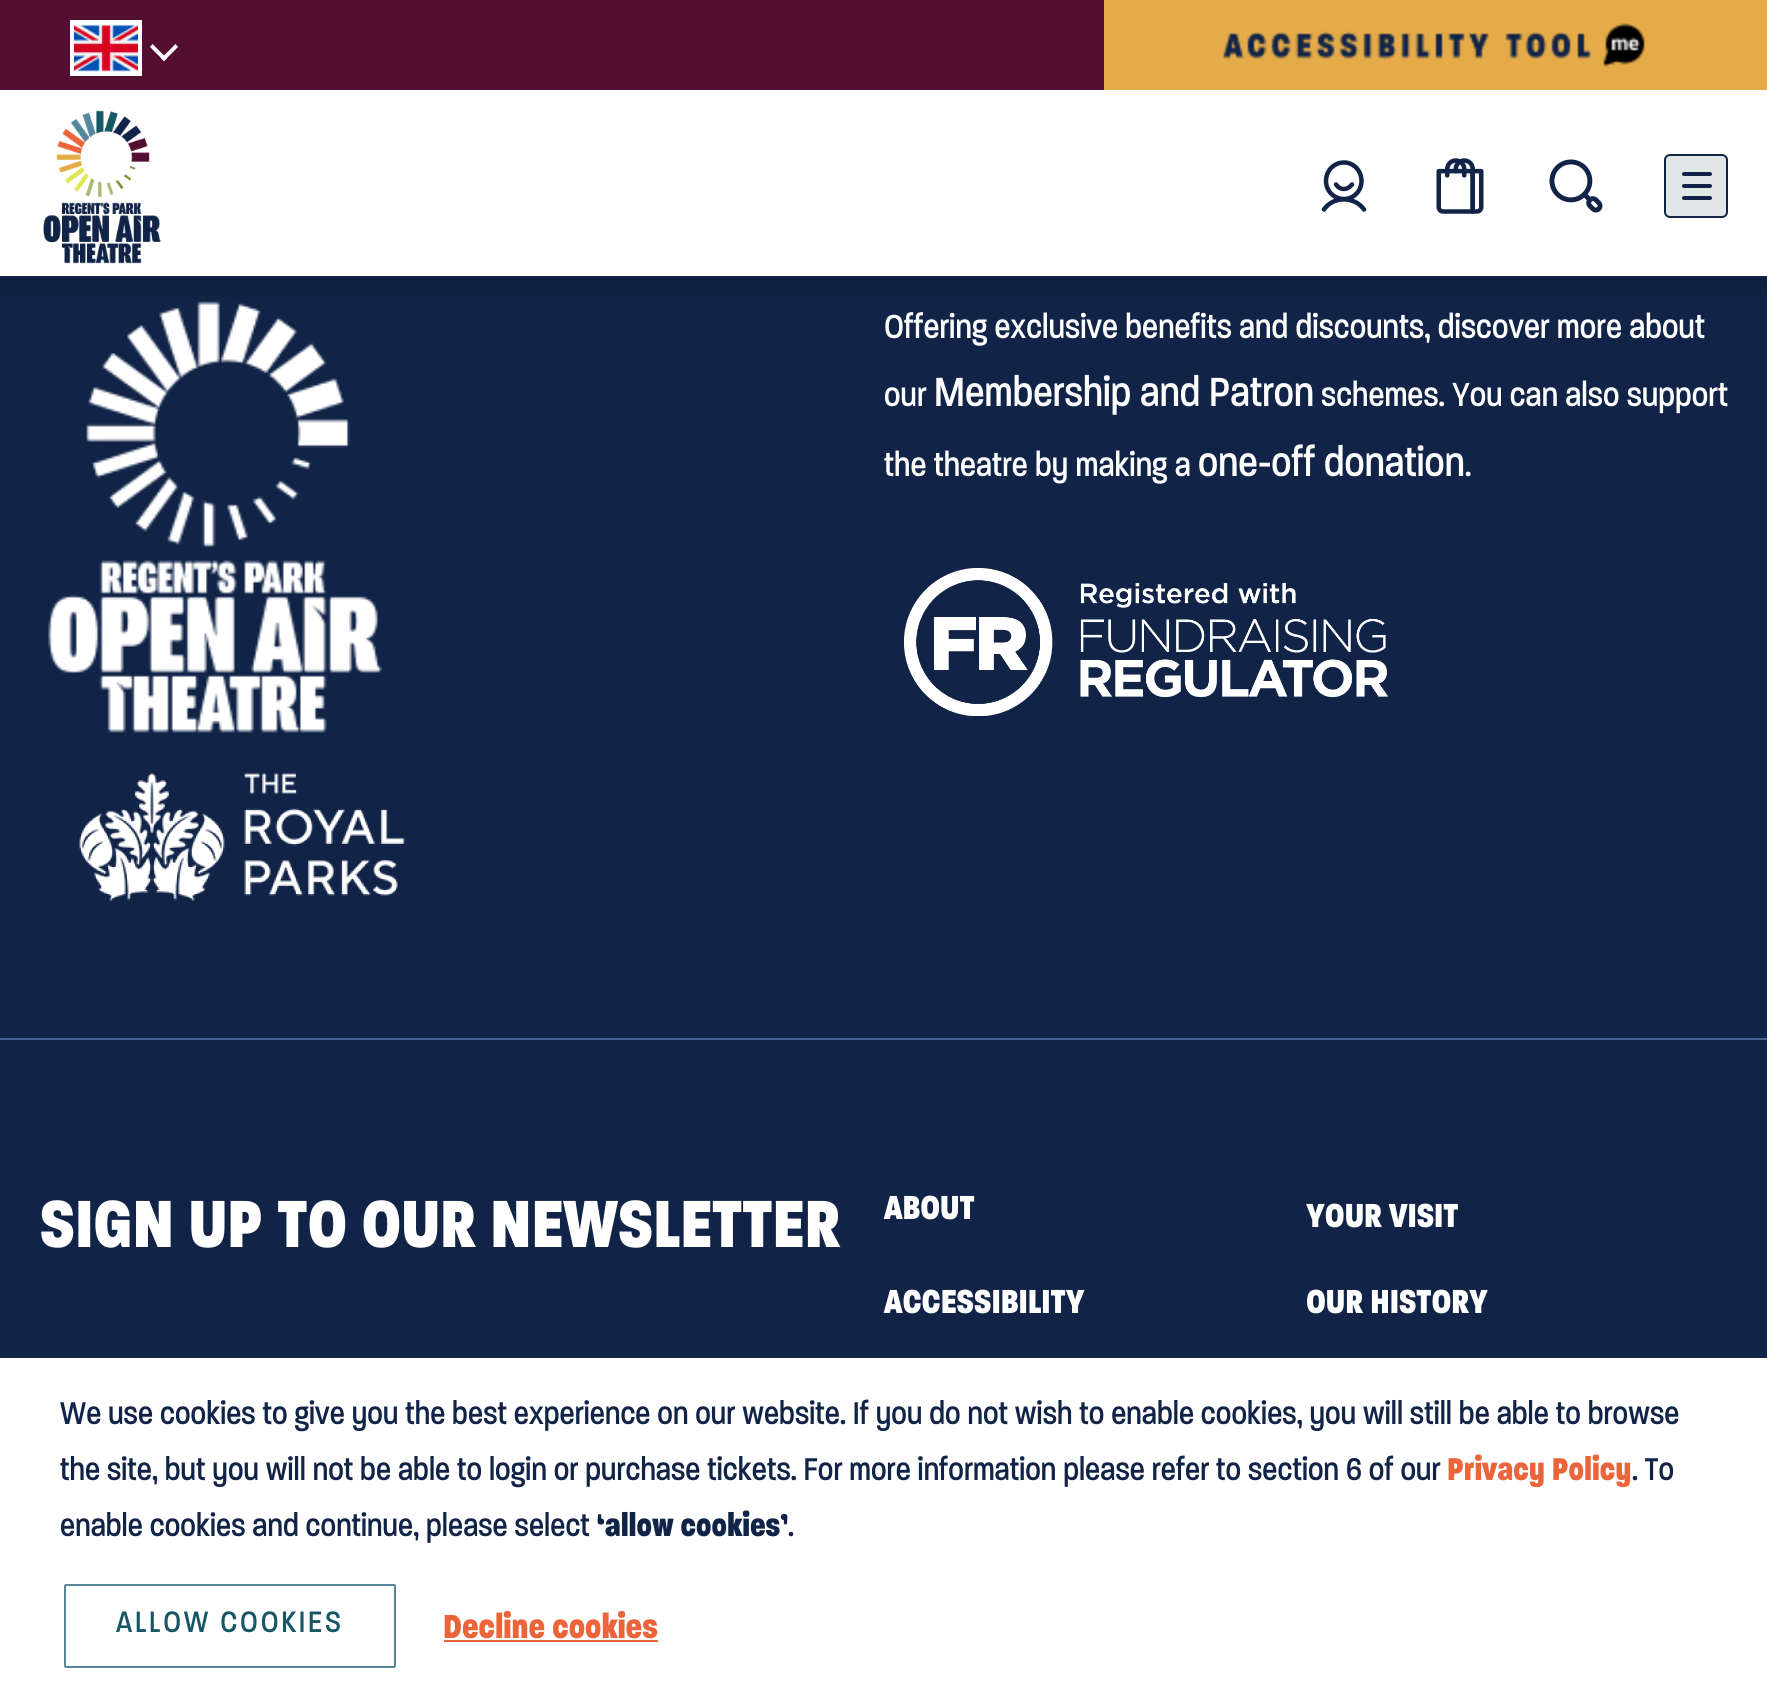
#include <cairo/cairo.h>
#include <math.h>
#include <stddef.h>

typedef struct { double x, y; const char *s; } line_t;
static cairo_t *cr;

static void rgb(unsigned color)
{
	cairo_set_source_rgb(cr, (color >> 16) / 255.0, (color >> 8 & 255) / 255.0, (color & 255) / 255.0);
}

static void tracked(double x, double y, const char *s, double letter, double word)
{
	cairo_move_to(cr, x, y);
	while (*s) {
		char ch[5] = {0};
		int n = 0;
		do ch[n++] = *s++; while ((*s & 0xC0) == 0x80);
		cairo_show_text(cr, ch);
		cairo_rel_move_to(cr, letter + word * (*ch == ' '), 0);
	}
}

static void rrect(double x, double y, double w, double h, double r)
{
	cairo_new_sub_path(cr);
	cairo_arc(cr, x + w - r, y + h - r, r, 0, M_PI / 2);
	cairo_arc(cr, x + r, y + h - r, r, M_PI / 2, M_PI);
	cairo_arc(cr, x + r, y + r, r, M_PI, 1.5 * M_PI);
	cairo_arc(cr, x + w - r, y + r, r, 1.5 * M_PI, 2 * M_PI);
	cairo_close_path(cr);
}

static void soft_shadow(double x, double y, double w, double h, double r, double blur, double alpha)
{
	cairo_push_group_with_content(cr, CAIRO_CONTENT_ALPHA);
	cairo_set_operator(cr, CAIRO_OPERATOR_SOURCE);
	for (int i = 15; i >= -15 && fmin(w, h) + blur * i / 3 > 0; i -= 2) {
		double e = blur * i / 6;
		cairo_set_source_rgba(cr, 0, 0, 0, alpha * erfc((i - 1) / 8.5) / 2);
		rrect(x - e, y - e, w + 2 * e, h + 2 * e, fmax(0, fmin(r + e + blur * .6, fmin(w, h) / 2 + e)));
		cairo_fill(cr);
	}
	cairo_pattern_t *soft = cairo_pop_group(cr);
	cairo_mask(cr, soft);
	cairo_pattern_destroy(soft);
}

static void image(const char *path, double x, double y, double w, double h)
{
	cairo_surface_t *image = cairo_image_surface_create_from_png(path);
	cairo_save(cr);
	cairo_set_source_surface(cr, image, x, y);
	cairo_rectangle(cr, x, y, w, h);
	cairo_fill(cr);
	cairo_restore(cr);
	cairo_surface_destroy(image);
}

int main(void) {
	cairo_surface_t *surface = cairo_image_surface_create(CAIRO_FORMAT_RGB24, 1767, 1708);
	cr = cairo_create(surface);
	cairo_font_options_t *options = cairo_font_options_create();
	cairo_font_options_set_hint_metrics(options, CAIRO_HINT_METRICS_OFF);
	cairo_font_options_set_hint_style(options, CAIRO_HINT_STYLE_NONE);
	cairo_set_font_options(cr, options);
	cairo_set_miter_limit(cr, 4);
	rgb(0x112448);
	cairo_paint(cr);
	rgb(0xffffff);
	cairo_rectangle(cr, 0, 90, 1767, 186);
	cairo_fill(cr);
	image("img/6.png", 48, 301, 334, 432);
	cairo_save(cr);
	cairo_rectangle(cr, 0, 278, 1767, 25);
	cairo_clip(cr);
	rgb(0x000000);
	soft_shadow(-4, 86, 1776, 196, 0, 15, 0.25);
	cairo_restore(cr);
	rgb(0x540e32);
	cairo_rectangle(cr, 0, 0, 1104, 90);
	cairo_fill(cr);
	rgb(0xffffff);
	cairo_rectangle(cr, 70, 20, 72, 56);
	cairo_fill(cr);
	image("img/1.png", 74, 24, 64, 48);
	cairo_new_path(cr);
	cairo_move_to(cr, 161, 58.5);
	cairo_line_to(cr, 175.5, 44);
	cairo_line_to(cr, 178, 47);
	cairo_line_to(cr, 164, 61);
	cairo_close_path(cr);
	cairo_fill(cr);
	cairo_new_path(cr);
	cairo_move_to(cr, 150, 47);
	cairo_line_to(cr, 152.5, 44);
	cairo_line_to(cr, 167, 58.5);
	cairo_line_to(cr, 164, 61);
	cairo_close_path(cr);
	cairo_fill(cr);
	rgb(0xe5ab48);
	cairo_rectangle(cr, 1104, 0, 663, 90);
	cairo_fill(cr);
	image("img/2.png", 1222, 23, 423, 44);
	image("img/3.png", 43, 110, 118, 154);
	cairo_new_path(cr);
	cairo_move_to(cr, 1344, 199);
	cairo_curve_to(cr, 1353.5, 199, 1361.5, 191, 1361.5, 181);
	cairo_curve_to(cr, 1361.5, 170.5, 1353.5, 162.5, 1344, 162.5);
	cairo_curve_to(cr, 1334, 162.5, 1326, 170.5, 1326, 181);
	cairo_curve_to(cr, 1326, 191, 1334, 199, 1344, 199);
	cairo_close_path(cr);
	cairo_move_to(cr, 1324, 209.5);
	cairo_curve_to(cr, 1333, 196, 1354.5, 196, 1364, 209.5);
	cairo_move_to(cr, 1352, 184.5);
	cairo_curve_to(cr, 1347.5, 190.5, 1340, 190.5, 1336, 184.5);
	rgb(0x112448);
	cairo_set_line_width(cr, 4.5);
	cairo_set_line_cap(cr, CAIRO_LINE_CAP_ROUND);
	cairo_set_line_join(cr, CAIRO_LINE_JOIN_ROUND);
	cairo_stroke(cr);
	image("img/4.png", 1436, 158, 48, 56);
	image("img/5.png", 1549, 159, 54, 54);
	rgb(0xe3e6e7);
	rrect(1665, 155, 62, 62, 5);
	cairo_fill_preserve(cr);
	rgb(0x112448);
	cairo_set_line_width(cr, 2);
	cairo_set_line_cap(cr, CAIRO_LINE_CAP_BUTT);
	cairo_set_line_join(cr, CAIRO_LINE_JOIN_MITER);
	cairo_stroke(cr);
	rrect(1682, 184, 30, 4, 2);
	cairo_fill(cr);
	rrect(1682, 172, 30, 4, 2);
	cairo_fill(cr);
	rrect(1682, 196, 30, 4, 2);
	cairo_fill(cr);
	rgb(0x466192);
	cairo_rectangle(cr, 0, 1038, 1767, 2);
	cairo_fill(cr);
	image("img/7.png", 79, 773, 326, 128);
	image("img/8.png", 904, 568, 484, 148);
	cairo_set_source_rgba(cr, 0.047, 0.086, 0.098, 0.1);
	cairo_rectangle(cr, 0, 1356, 1767, 2);
	cairo_fill(cr);
	rgb(0xffffff);
	cairo_rectangle(cr, 0, 1358, 1767, 350);
	cairo_fill(cr);
	rrect(65, 1585, 330, 82, 1);
	rgb(0x57879a);
	cairo_stroke(cr);
	rgb(0xec643a);
	cairo_rectangle(cr, 444, 1640, 214, 2);
	cairo_fill(cr);
	cairo_select_font_face(cr, "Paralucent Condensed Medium", CAIRO_FONT_SLANT_NORMAL, CAIRO_FONT_WEIGHT_NORMAL);
	cairo_set_font_size(cr, 36);
	rgb(0xffffff);
	cairo_move_to(cr, 884, 338);
	cairo_show_text(cr, "Offering exclusive benefits and discounts, discover more about");
	cairo_move_to(cr, 884, 406);
	cairo_show_text(cr, "our");
	cairo_set_font_size(cr, 44);
	cairo_move_to(cr, 934, 406);
	cairo_show_text(cr, "Membership and Patron");
	cairo_set_font_size(cr, 36);
	cairo_move_to(cr, 1321, 406);
	cairo_show_text(cr, "schemes. You can also support");
	cairo_move_to(cr, 884, 476);
	cairo_show_text(cr, "the theatre by making a");
	cairo_set_font_size(cr, 44);
	cairo_move_to(cr, 1198, 476);
	cairo_show_text(cr, "one-off donation");
	cairo_set_font_size(cr, 36);
	cairo_move_to(cr, 1465, 476);
	cairo_show_text(cr, ".");
	cairo_select_font_face(cr, "Paralucent Condensed Black", CAIRO_FONT_SLANT_NORMAL, CAIRO_FONT_WEIGHT_NORMAL);
	cairo_set_font_size(cr, 72);
	cairo_move_to(cr, 40, 1247);
	cairo_show_text(cr, "SIGN UP TO OUR NEWSLETTER");
	cairo_set_font_size(cr, 36);
	{
		static const line_t items[] = {
			{884, 1219, "ABOUT"},
			{1306, 1227, "YOUR VISIT"},
			{884, 1313, "ACCESSIBILITY"},
			{1306, 1313, "OUR HISTORY"},
		};
		for (size_t i = 0; i < sizeof items / sizeof *items; i++) {
			cairo_move_to(cr, items[i].x, items[i].y);
			cairo_show_text(cr, items[i].s);
		}
	}
	cairo_select_font_face(cr, "Paralucent Condensed Medium", CAIRO_FONT_SLANT_NORMAL, CAIRO_FONT_WEIGHT_NORMAL);
	cairo_set_font_size(cr, 34);
	rgb(0x112448);
	cairo_move_to(cr, 60, 1424);
	cairo_show_text(cr, "We use cookies to give you the best experience on our website. If you do not wish to enable cookies, you will still be able to browse");
	cairo_move_to(cr, 60, 1480);
	cairo_show_text(cr, "the site, but you will not be able to login or purchase tickets. For more information please refer to section 6 of our");
	cairo_select_font_face(cr, "Paralucent Condensed Black", CAIRO_FONT_SLANT_NORMAL, CAIRO_FONT_WEIGHT_NORMAL);
	rgb(0xec643a);
	cairo_move_to(cr, 1447, 1480);
	cairo_show_text(cr, "Privacy Policy");
	cairo_select_font_face(cr, "Paralucent Condensed Medium", CAIRO_FONT_SLANT_NORMAL, CAIRO_FONT_WEIGHT_NORMAL);
	rgb(0x112448);
	cairo_move_to(cr, 1632, 1480);
	cairo_show_text(cr, ". To");
	cairo_move_to(cr, 60, 1536);
	cairo_show_text(cr, "enable cookies and continue, please select");
	cairo_select_font_face(cr, "Paralucent Condensed Black", CAIRO_FONT_SLANT_NORMAL, CAIRO_FONT_WEIGHT_NORMAL);
	cairo_move_to(cr, 597, 1536);
	cairo_show_text(cr, "‘allow cookies’");
	cairo_select_font_face(cr, "Paralucent Condensed Medium", CAIRO_FONT_SLANT_NORMAL, CAIRO_FONT_WEIGHT_NORMAL);
	cairo_move_to(cr, 788, 1536);
	cairo_show_text(cr, ".");
	cairo_set_font_size(cr, 32);
	rgb(0x175665);
	tracked(116, 1632, "ALLOW COOKIES", 2.75, 0);
	cairo_select_font_face(cr, "Paralucent Condensed Black", CAIRO_FONT_SLANT_NORMAL, CAIRO_FONT_WEIGHT_NORMAL);
	cairo_set_font_size(cr, 36);
	rgb(0xec643a);
	cairo_move_to(cr, 443, 1638);
	cairo_show_text(cr, "Decline cookies");
	cairo_surface_write_to_png(surface, "page.png");
	cairo_font_options_destroy(options);
	cairo_destroy(cr);
	cairo_surface_destroy(surface);
	return 0;
}
